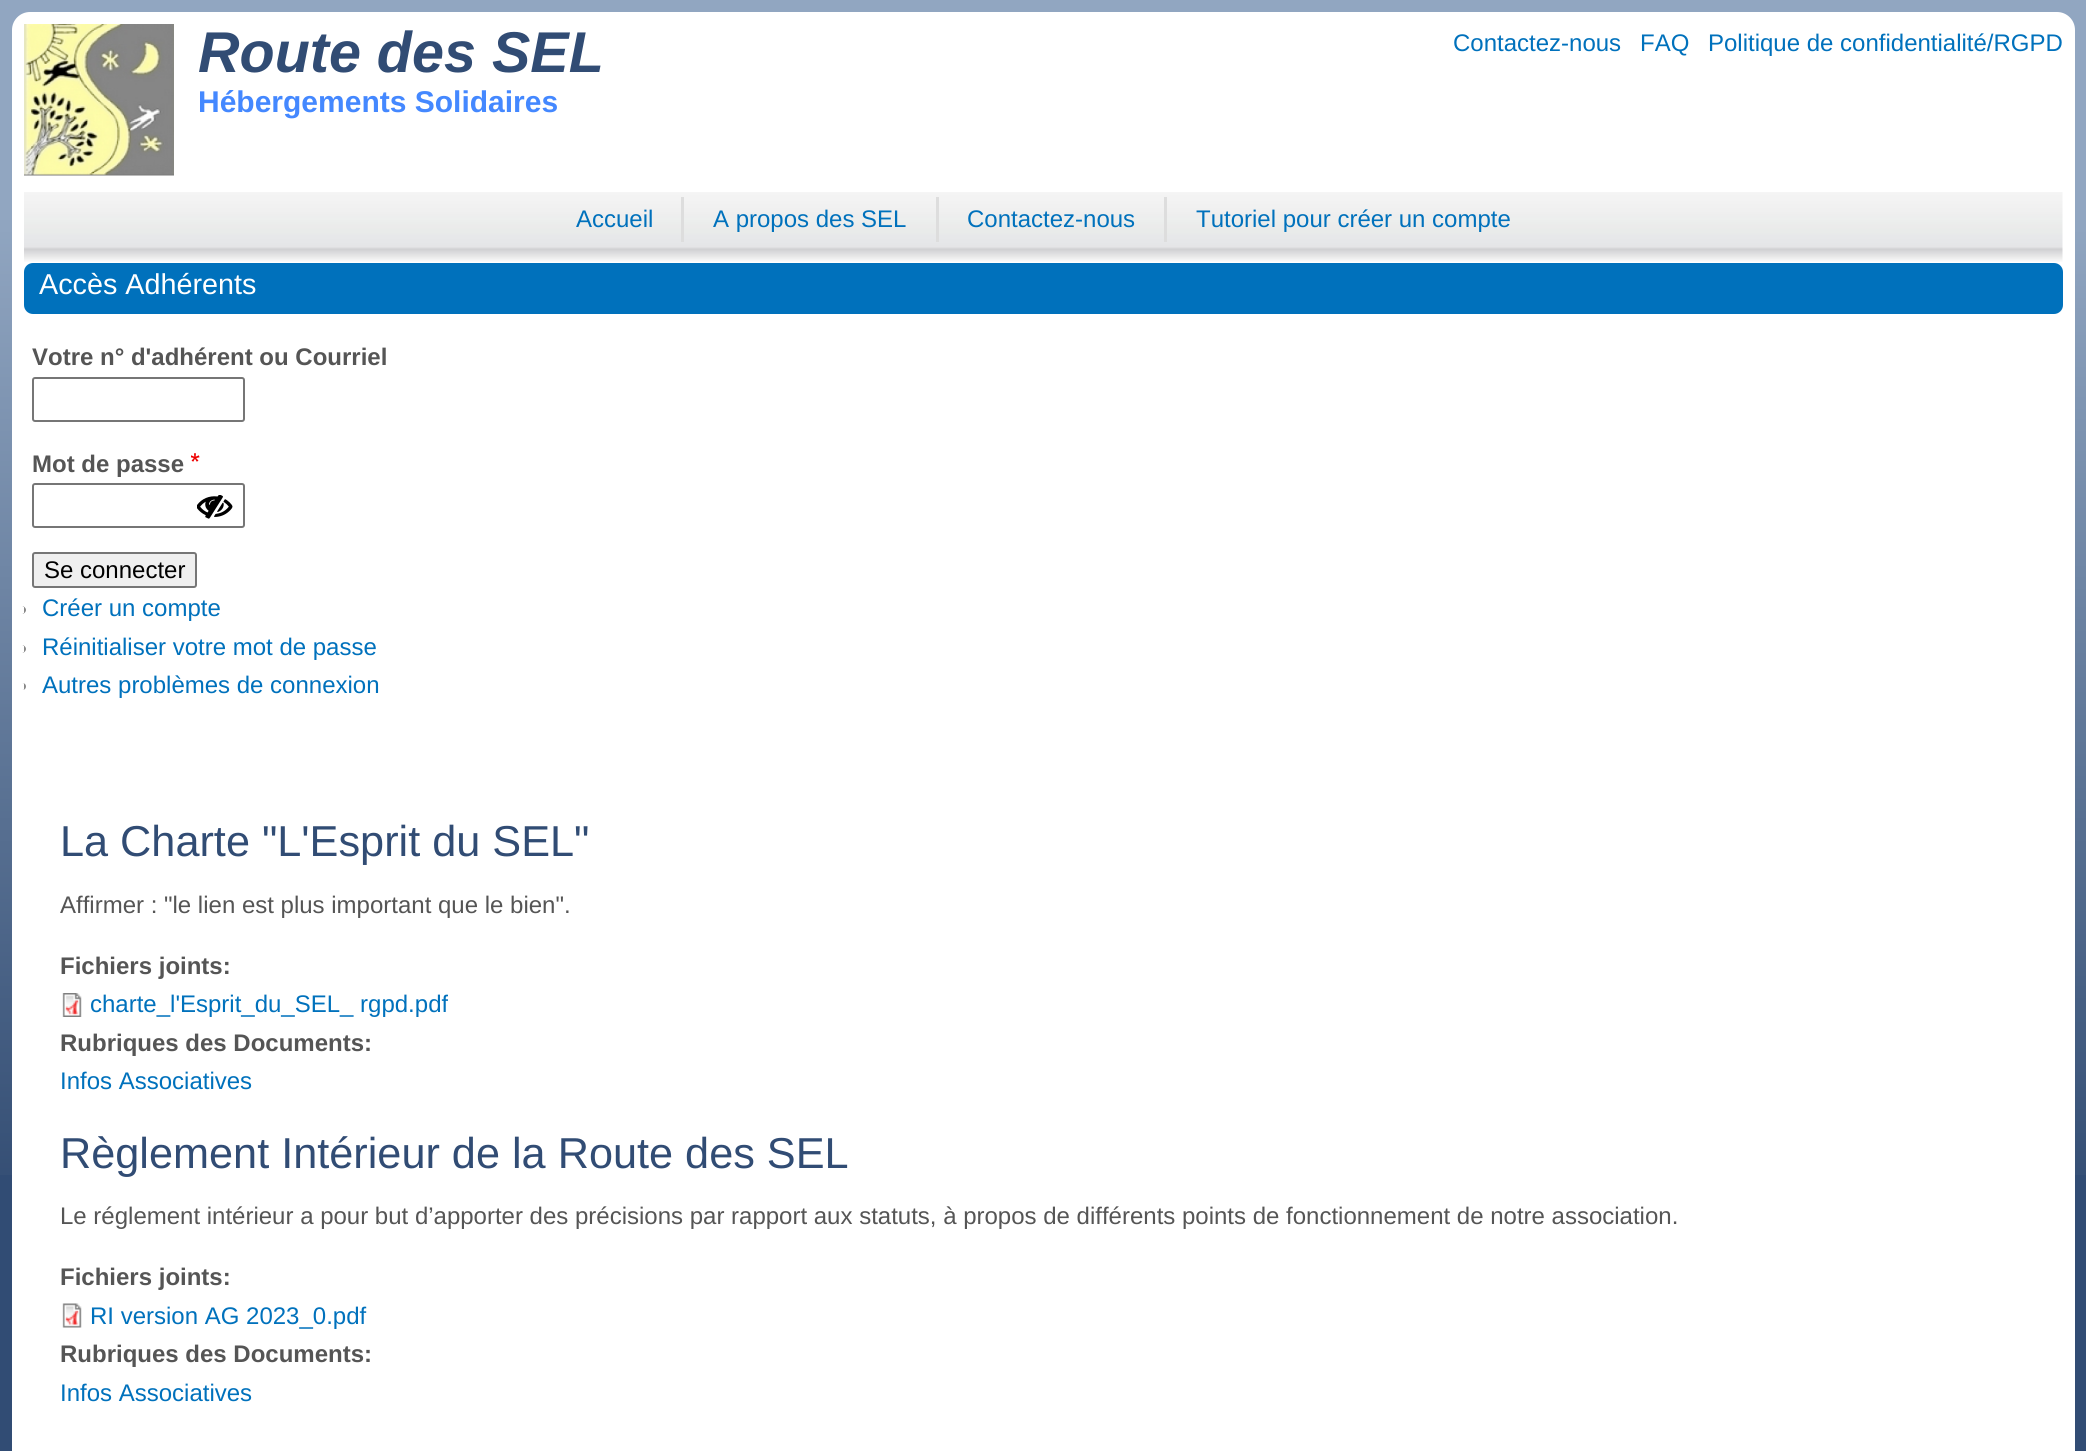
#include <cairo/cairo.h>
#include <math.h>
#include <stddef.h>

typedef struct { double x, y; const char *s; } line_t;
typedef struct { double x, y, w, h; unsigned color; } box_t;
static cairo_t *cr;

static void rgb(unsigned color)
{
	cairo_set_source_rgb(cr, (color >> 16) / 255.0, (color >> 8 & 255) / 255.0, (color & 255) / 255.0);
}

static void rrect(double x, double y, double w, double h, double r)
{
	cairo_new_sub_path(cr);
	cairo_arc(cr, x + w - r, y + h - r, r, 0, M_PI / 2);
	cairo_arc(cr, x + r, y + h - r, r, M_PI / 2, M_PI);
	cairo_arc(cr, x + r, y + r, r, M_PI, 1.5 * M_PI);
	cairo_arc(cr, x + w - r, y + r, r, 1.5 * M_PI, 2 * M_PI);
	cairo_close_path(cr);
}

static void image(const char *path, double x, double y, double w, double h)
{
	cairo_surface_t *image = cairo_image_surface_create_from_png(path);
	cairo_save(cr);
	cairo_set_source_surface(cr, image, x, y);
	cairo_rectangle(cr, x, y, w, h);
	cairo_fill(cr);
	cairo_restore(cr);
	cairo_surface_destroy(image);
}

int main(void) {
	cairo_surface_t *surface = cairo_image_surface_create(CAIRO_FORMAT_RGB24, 2086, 1451);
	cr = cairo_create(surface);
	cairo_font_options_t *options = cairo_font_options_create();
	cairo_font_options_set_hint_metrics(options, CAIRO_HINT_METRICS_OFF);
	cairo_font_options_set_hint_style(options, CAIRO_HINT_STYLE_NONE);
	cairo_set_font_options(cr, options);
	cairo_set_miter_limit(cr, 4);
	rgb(0x314c74);
	cairo_paint(cr);
	image("img/1.png", 0, 0, 2086, 1175);
	rgb(0xffffff);
	rrect(12, 12, 2063, 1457, 18);
	cairo_fill(cr);
	image("img/2.png", 24, 24, 150, 152);
	image("img/3.png", 24, 192, 2039, 70);
	{
		static const box_t items[] = {
			{681, 197, 3, 45, 0xdddddd},
			{936, 197, 3, 45, 0xdddddd},
			{1164, 197, 3, 45, 0xdddddd},
		};
		for (size_t i = 0; i < sizeof items / sizeof *items; i++) {
			rgb(items[i].color);
			cairo_rectangle(cr, items[i].x, items[i].y, items[i].w, items[i].h);
			cairo_fill(cr);
		}
	}
	rgb(0x0071bc);
	rrect(24, 263, 2039, 51, 9);
	cairo_fill(cr);
	rrect(33, 378, 211, 43, 2);
	rgb(0x767676);
	cairo_stroke(cr);
	image("img/4.png", 191, 453, 9, 9);
	rrect(33, 484, 211, 43, 2);
	cairo_stroke(cr);
	image("img/5.png", 197, 495, 36, 24);
	rgb(0xefefef);
	rrect(33, 553, 163, 34, 2);
	cairo_fill_preserve(cr);
	rgb(0x767676);
	cairo_stroke(cr);
	rgb(0x888888);
	cairo_new_path(cr);
	cairo_move_to(cr, 24, 606);
	cairo_line_to(cr, 22, 606);
	cairo_curve_to(cr, 24, 606, 26, 608, 26, 610);
	cairo_curve_to(cr, 26, 612, 24, 614, 22, 614);
	cairo_line_to(cr, 24, 614);
	cairo_close_path(cr);
	cairo_fill(cr);
	cairo_new_path(cr);
	cairo_move_to(cr, 24, 645);
	cairo_line_to(cr, 22, 645);
	cairo_curve_to(cr, 24, 645, 26, 647, 26, 649);
	cairo_curve_to(cr, 26, 651, 24, 653, 22, 653);
	cairo_line_to(cr, 24, 653);
	cairo_close_path(cr);
	cairo_fill(cr);
	cairo_new_path(cr);
	cairo_move_to(cr, 24, 683);
	cairo_line_to(cr, 22.5, 683);
	cairo_curve_to(cr, 24.5, 683, 26, 684.5, 26, 686.5);
	cairo_curve_to(cr, 26, 688.5, 24.5, 690, 22.5, 690);
	cairo_line_to(cr, 24, 690);
	cairo_close_path(cr);
	cairo_fill(cr);
	image("img/6.png", 62, 993, 20, 24);
	image("img/7.png", 62, 1303, 20, 25);
	cairo_select_font_face(cr, "Liberation Sans", CAIRO_FONT_SLANT_ITALIC, CAIRO_FONT_WEIGHT_BOLD);
	cairo_set_font_size(cr, 57.5);
	rgb(0x314c74);
	cairo_move_to(cr, 198, 72);
	cairo_show_text(cr, "Route des SEL");
	cairo_select_font_face(cr, "Liberation Sans", CAIRO_FONT_SLANT_NORMAL, CAIRO_FONT_WEIGHT_BOLD);
	cairo_set_font_size(cr, 30);
	rgb(0x4488ff);
	cairo_move_to(cr, 198, 112);
	cairo_show_text(cr, "Hébergements Solidaires");
	cairo_select_font_face(cr, "Liberation Sans", CAIRO_FONT_SLANT_NORMAL, CAIRO_FONT_WEIGHT_NORMAL);
	cairo_set_font_size(cr, 24);
	rgb(0x0071bc);
	{
		static const line_t items[] = {
			{1453, 51, "Contactez-nous"},
			{1640, 51, "FAQ"},
			{1708, 51, "Politique de confidentialité/RGPD"},
			{576, 227, "Accueil"},
			{713, 227, "A propos des SEL"},
			{967, 227, "Contactez-nous"},
			{1196, 227, "Tutoriel pour créer un compte"},
		};
		for (size_t i = 0; i < sizeof items / sizeof *items; i++) {
			cairo_move_to(cr, items[i].x, items[i].y);
			cairo_show_text(cr, items[i].s);
		}
	}
	cairo_set_font_size(cr, 28.75);
	rgb(0xffffff);
	cairo_move_to(cr, 39, 294);
	cairo_show_text(cr, "Accès Adhérents");
	cairo_select_font_face(cr, "Liberation Sans", CAIRO_FONT_SLANT_NORMAL, CAIRO_FONT_WEIGHT_BOLD);
	cairo_set_font_size(cr, 24);
	rgb(0x555555);
	cairo_move_to(cr, 32, 365);
	cairo_show_text(cr, "Votre n° d'adhérent ou Courriel");
	cairo_move_to(cr, 32, 472);
	cairo_show_text(cr, "Mot de passe");
	cairo_select_font_face(cr, "Liberation Sans", CAIRO_FONT_SLANT_NORMAL, CAIRO_FONT_WEIGHT_NORMAL);
	rgb(0x000000);
	cairo_move_to(cr, 44, 578);
	cairo_show_text(cr, "Se connecter");
	rgb(0x0071bc);
	{
		static const line_t items[] = {
			{42, 616, "Créer un compte"},
			{42, 655, "Réinitialiser votre mot de passe"},
			{42, 693, "Autres problèmes de connexion"},
		};
		for (size_t i = 0; i < sizeof items / sizeof *items; i++) {
			cairo_move_to(cr, items[i].x, items[i].y);
			cairo_show_text(cr, items[i].s);
		}
	}
	cairo_set_font_size(cr, 43.25);
	rgb(0x314c74);
	cairo_move_to(cr, 60, 856);
	cairo_show_text(cr, "La Charte \"L'Esprit du SEL\"");
	cairo_set_font_size(cr, 24);
	rgb(0x555555);
	cairo_move_to(cr, 60, 913);
	cairo_show_text(cr, "Affirmer : \"le lien est plus important que le bien\".");
	cairo_select_font_face(cr, "Liberation Sans", CAIRO_FONT_SLANT_NORMAL, CAIRO_FONT_WEIGHT_BOLD);
	cairo_move_to(cr, 60, 974);
	cairo_show_text(cr, "Fichiers joints:");
	cairo_select_font_face(cr, "Liberation Sans", CAIRO_FONT_SLANT_NORMAL, CAIRO_FONT_WEIGHT_NORMAL);
	rgb(0x0071bc);
	cairo_move_to(cr, 90, 1012);
	cairo_show_text(cr, "charte_l'Esprit_du_SEL_ rgpd.pdf");
	cairo_select_font_face(cr, "Liberation Sans", CAIRO_FONT_SLANT_NORMAL, CAIRO_FONT_WEIGHT_BOLD);
	rgb(0x555555);
	cairo_move_to(cr, 60, 1051);
	cairo_show_text(cr, "Rubriques des Documents:");
	cairo_select_font_face(cr, "Liberation Sans", CAIRO_FONT_SLANT_NORMAL, CAIRO_FONT_WEIGHT_NORMAL);
	rgb(0x0071bc);
	cairo_move_to(cr, 60, 1089);
	cairo_show_text(cr, "Infos Associatives");
	cairo_set_font_size(cr, 43.25);
	rgb(0x314c74);
	cairo_move_to(cr, 60, 1168);
	cairo_show_text(cr, "Règlement Intérieur de la Route des SEL");
	cairo_set_font_size(cr, 24);
	rgb(0x555555);
	cairo_move_to(cr, 60, 1224);
	cairo_show_text(cr, "Le réglement intérieur a pour but d’apporter des précisions par rapport aux statuts, à propos de différents points de fonctionnement de notre association.");
	cairo_select_font_face(cr, "Liberation Sans", CAIRO_FONT_SLANT_NORMAL, CAIRO_FONT_WEIGHT_BOLD);
	cairo_move_to(cr, 60, 1285);
	cairo_show_text(cr, "Fichiers joints:");
	cairo_select_font_face(cr, "Liberation Sans", CAIRO_FONT_SLANT_NORMAL, CAIRO_FONT_WEIGHT_NORMAL);
	rgb(0x0071bc);
	cairo_move_to(cr, 90, 1324);
	cairo_show_text(cr, "RI version AG 2023_0.pdf");
	cairo_select_font_face(cr, "Liberation Sans", CAIRO_FONT_SLANT_NORMAL, CAIRO_FONT_WEIGHT_BOLD);
	rgb(0x555555);
	cairo_move_to(cr, 60, 1362);
	cairo_show_text(cr, "Rubriques des Documents:");
	cairo_select_font_face(cr, "Liberation Sans", CAIRO_FONT_SLANT_NORMAL, CAIRO_FONT_WEIGHT_NORMAL);
	rgb(0x0071bc);
	cairo_move_to(cr, 60, 1401);
	cairo_show_text(cr, "Infos Associatives");
	cairo_surface_write_to_png(surface, "page.png");
	cairo_font_options_destroy(options);
	cairo_destroy(cr);
	cairo_surface_destroy(surface);
	return 0;
}
